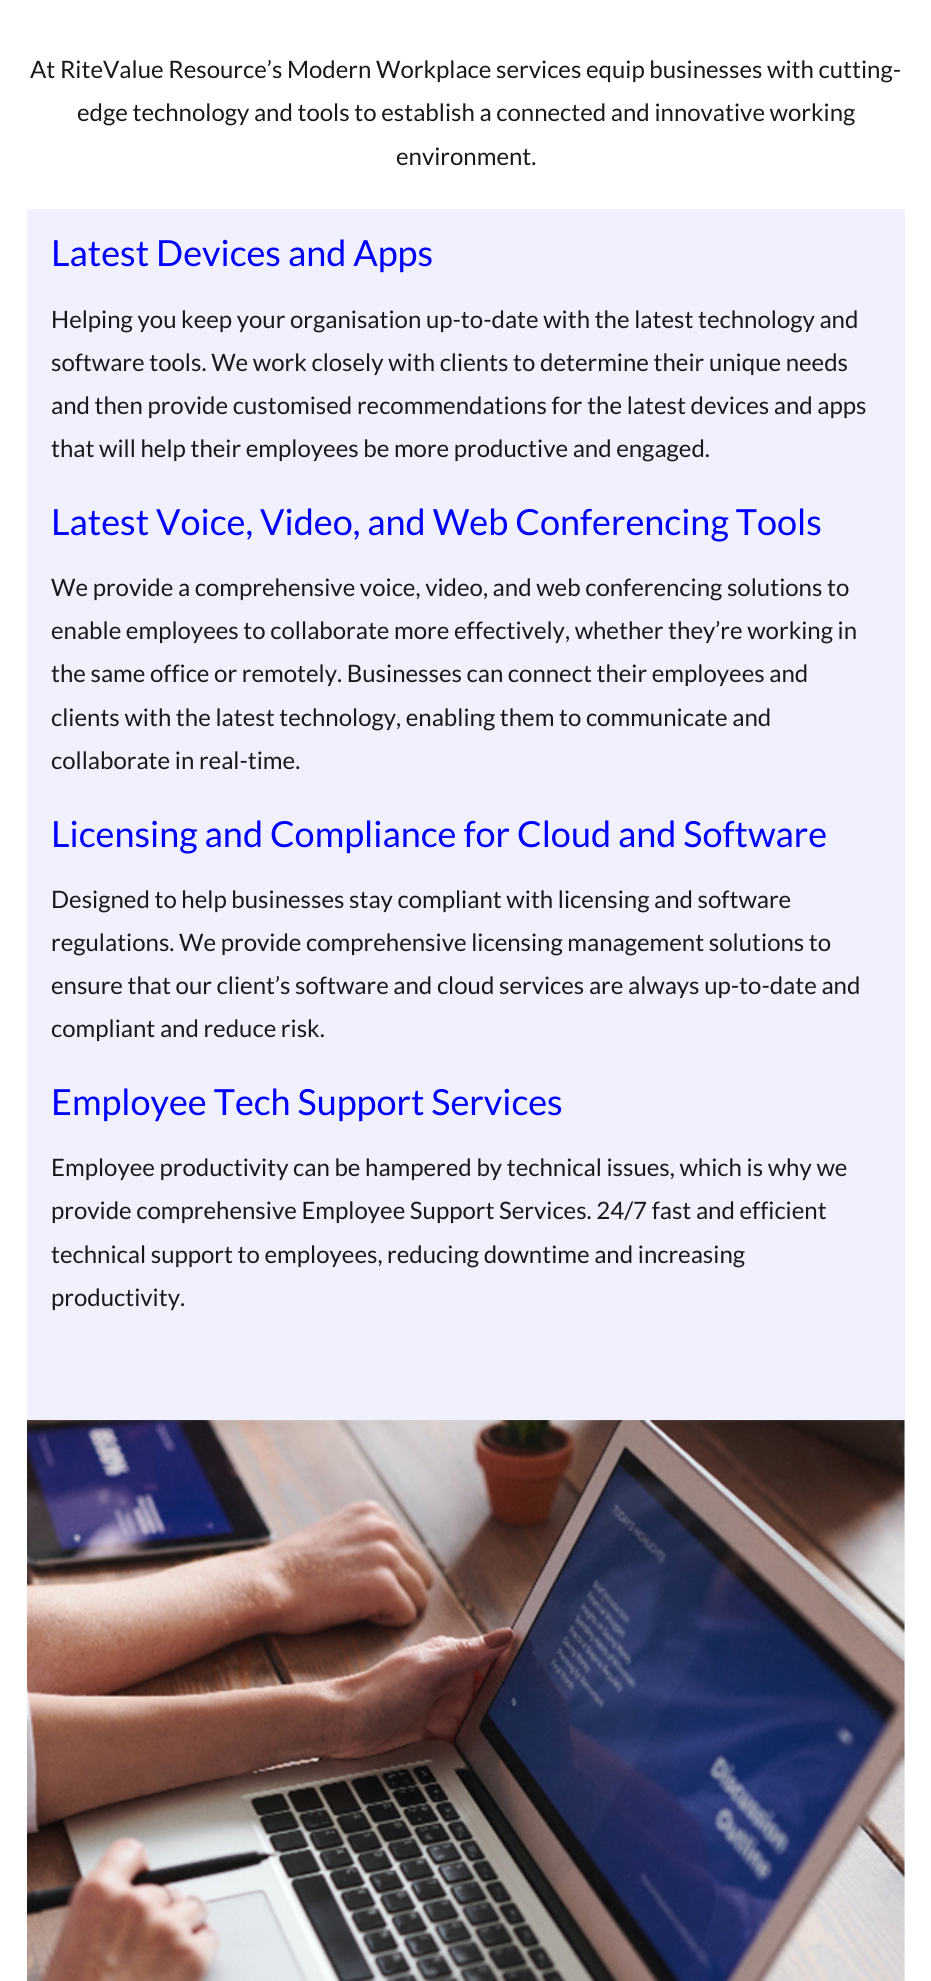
#include <cairo/cairo.h>
#include <math.h>
#include <stddef.h>

typedef struct { double x, y; const char *s; } line_t;
static cairo_t *cr;

static void rgb(unsigned color)
{
	cairo_set_source_rgb(cr, (color >> 16) / 255.0, (color >> 8 & 255) / 255.0, (color & 255) / 255.0);
}

static void image(const char *path, double x, double y, double w, double h)
{
	cairo_surface_t *image = cairo_image_surface_create_from_png(path);
	cairo_save(cr);
	cairo_set_source_surface(cr, image, x, y);
	cairo_rectangle(cr, x, y, w, h);
	cairo_fill(cr);
	cairo_restore(cr);
	cairo_surface_destroy(image);
}

int main(void) {
	cairo_surface_t *surface = cairo_image_surface_create(CAIRO_FORMAT_RGB24, 931, 1981);
	cr = cairo_create(surface);
	cairo_font_options_t *options = cairo_font_options_create();
	cairo_font_options_set_hint_metrics(options, CAIRO_HINT_METRICS_OFF);
	cairo_font_options_set_hint_style(options, CAIRO_HINT_STYLE_NONE);
	cairo_set_font_options(cr, options);
	cairo_set_miter_limit(cr, 4);
	rgb(0xffffff);
	cairo_paint(cr);
	rgb(0xf0f0ff);
	cairo_rectangle(cr, 27, 209, 878, 1772);
	cairo_fill(cr);
	image("img/1.png", 27, 1420, 878, 561);
	cairo_select_font_face(cr, "Lato", CAIRO_FONT_SLANT_NORMAL, CAIRO_FONT_WEIGHT_NORMAL);
	cairo_set_font_size(cr, 24);
	rgb(0x191919);
	{
		static const line_t items[] = {
			{30, 78, "At RiteValue Resource’s Modern Workplace services equip businesses with cutting-"},
			{77, 121, "edge technology and tools to establish a connected and innovative working"},
			{396, 165, "environment."},
		};
		for (size_t i = 0; i < sizeof items / sizeof *items; i++) {
			cairo_move_to(cr, items[i].x, items[i].y);
			cairo_show_text(cr, items[i].s);
		}
	}
	cairo_set_font_size(cr, 36);
	rgb(0x0000fb);
	cairo_move_to(cr, 51, 266);
	cairo_show_text(cr, "Latest Devices and Apps");
	cairo_set_font_size(cr, 24);
	rgb(0x191919);
	{
		static const line_t items[] = {
			{51, 328, "Helping you keep your organisation up-to-date with the latest technology and"},
			{51, 371, "software tools. We work closely with clients to determine their unique needs"},
			{51, 414, "and then provide customised recommendations for the latest devices and apps"},
			{51, 457, "that will help their employees be more productive and engaged."},
		};
		for (size_t i = 0; i < sizeof items / sizeof *items; i++) {
			cairo_move_to(cr, items[i].x, items[i].y);
			cairo_show_text(cr, items[i].s);
		}
	}
	cairo_set_font_size(cr, 36);
	rgb(0x0000fb);
	cairo_move_to(cr, 51, 535);
	cairo_show_text(cr, "Latest Voice, Video, and Web Conferencing Tools");
	cairo_set_font_size(cr, 24);
	rgb(0x191919);
	{
		static const line_t items[] = {
			{51, 596, "We provide a comprehensive voice, video, and web conferencing solutions to"},
			{51, 639, "enable employees to collaborate more effectively, whether they’re working in"},
			{51, 682, "the same office or remotely. Businesses can connect their employees and"},
			{51, 726, "clients with the latest technology, enabling them to communicate and"},
			{51, 769, "collaborate in real-time."},
		};
		for (size_t i = 0; i < sizeof items / sizeof *items; i++) {
			cairo_move_to(cr, items[i].x, items[i].y);
			cairo_show_text(cr, items[i].s);
		}
	}
	cairo_set_font_size(cr, 36);
	rgb(0x0000fb);
	cairo_move_to(cr, 51, 847);
	cairo_show_text(cr, "Licensing and Compliance for Cloud and Software");
	cairo_set_font_size(cr, 24);
	rgb(0x191919);
	{
		static const line_t items[] = {
			{51, 908, "Designed to help businesses stay compliant with licensing and software"},
			{51, 951, "regulations. We provide comprehensive licensing management solutions to"},
			{51, 994, "ensure that our client’s software and cloud services are always up-to-date and"},
			{51, 1037, "compliant and reduce risk."},
		};
		for (size_t i = 0; i < sizeof items / sizeof *items; i++) {
			cairo_move_to(cr, items[i].x, items[i].y);
			cairo_show_text(cr, items[i].s);
		}
	}
	cairo_set_font_size(cr, 36);
	rgb(0x0000fb);
	cairo_move_to(cr, 51, 1115);
	cairo_show_text(cr, "Employee Tech Support Services");
	cairo_set_font_size(cr, 24);
	rgb(0x191919);
	{
		static const line_t items[] = {
			{51, 1176, "Employee productivity can be hampered by technical issues, which is why we"},
			{51, 1219, "provide comprehensive Employee Support Services. 24/7 fast and efficient"},
			{51, 1263, "technical support to employees, reducing downtime and increasing"},
			{51, 1306, "productivity."},
		};
		for (size_t i = 0; i < sizeof items / sizeof *items; i++) {
			cairo_move_to(cr, items[i].x, items[i].y);
			cairo_show_text(cr, items[i].s);
		}
	}
	cairo_surface_write_to_png(surface, "page.png");
	cairo_font_options_destroy(options);
	cairo_destroy(cr);
	cairo_surface_destroy(surface);
	return 0;
}
